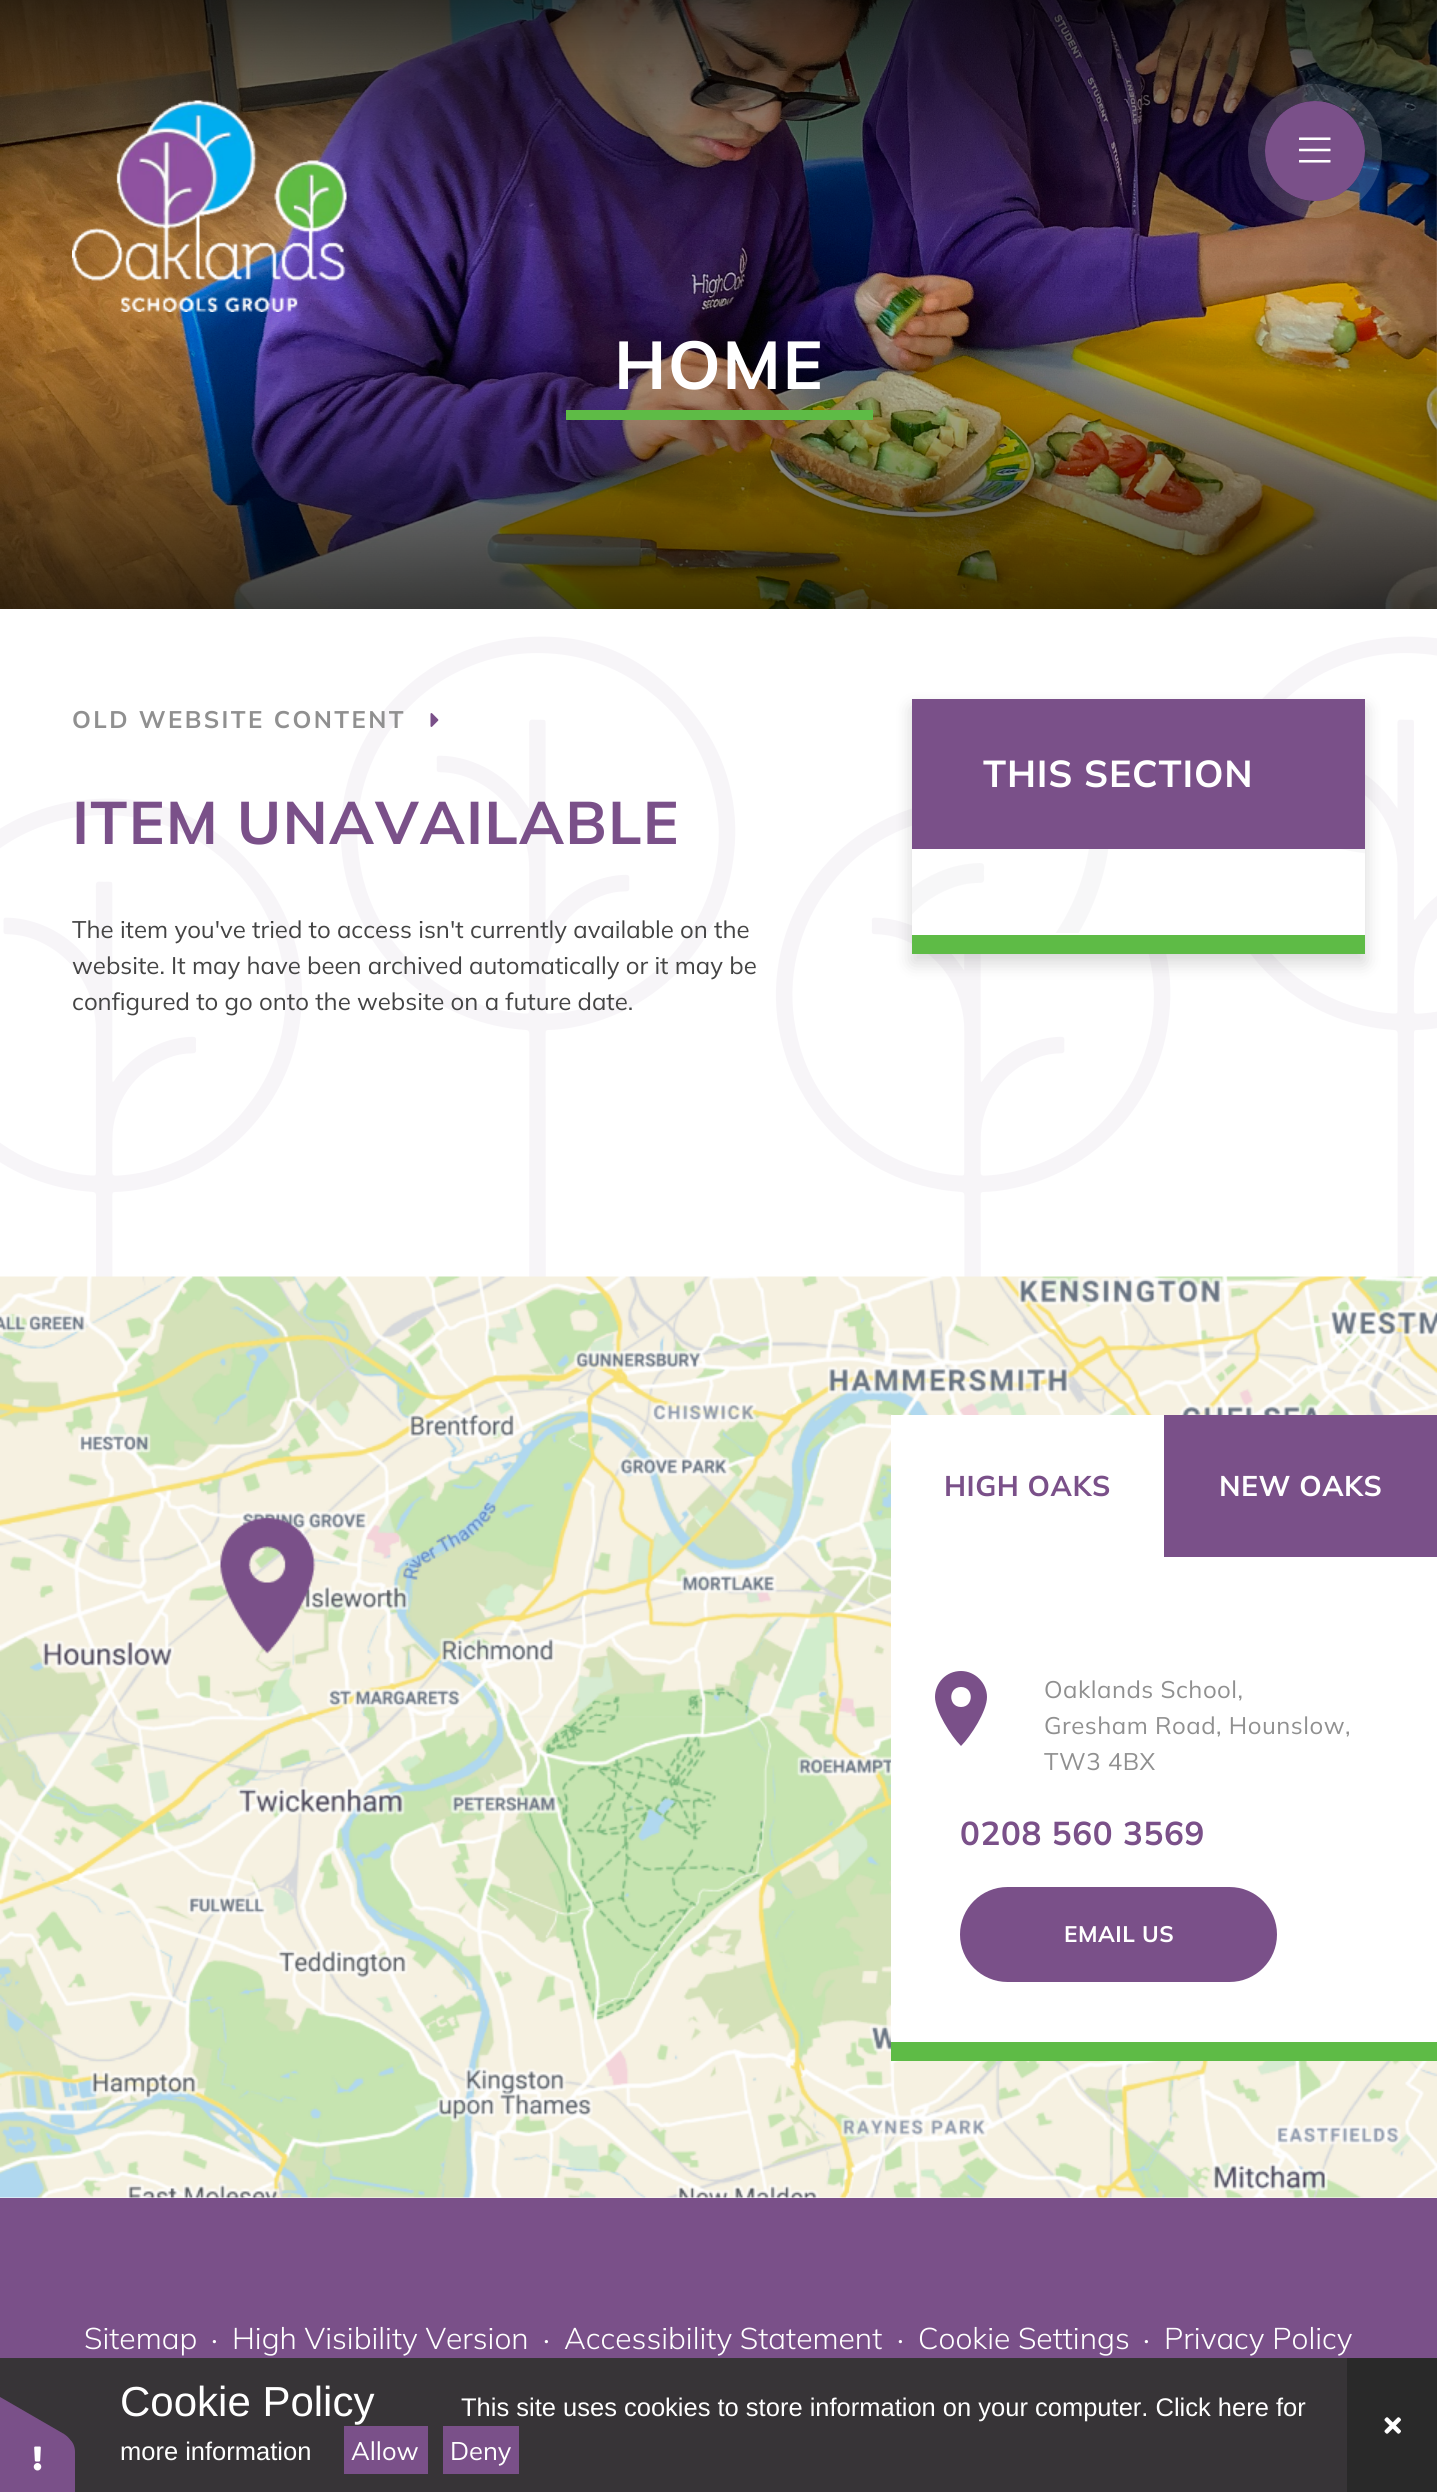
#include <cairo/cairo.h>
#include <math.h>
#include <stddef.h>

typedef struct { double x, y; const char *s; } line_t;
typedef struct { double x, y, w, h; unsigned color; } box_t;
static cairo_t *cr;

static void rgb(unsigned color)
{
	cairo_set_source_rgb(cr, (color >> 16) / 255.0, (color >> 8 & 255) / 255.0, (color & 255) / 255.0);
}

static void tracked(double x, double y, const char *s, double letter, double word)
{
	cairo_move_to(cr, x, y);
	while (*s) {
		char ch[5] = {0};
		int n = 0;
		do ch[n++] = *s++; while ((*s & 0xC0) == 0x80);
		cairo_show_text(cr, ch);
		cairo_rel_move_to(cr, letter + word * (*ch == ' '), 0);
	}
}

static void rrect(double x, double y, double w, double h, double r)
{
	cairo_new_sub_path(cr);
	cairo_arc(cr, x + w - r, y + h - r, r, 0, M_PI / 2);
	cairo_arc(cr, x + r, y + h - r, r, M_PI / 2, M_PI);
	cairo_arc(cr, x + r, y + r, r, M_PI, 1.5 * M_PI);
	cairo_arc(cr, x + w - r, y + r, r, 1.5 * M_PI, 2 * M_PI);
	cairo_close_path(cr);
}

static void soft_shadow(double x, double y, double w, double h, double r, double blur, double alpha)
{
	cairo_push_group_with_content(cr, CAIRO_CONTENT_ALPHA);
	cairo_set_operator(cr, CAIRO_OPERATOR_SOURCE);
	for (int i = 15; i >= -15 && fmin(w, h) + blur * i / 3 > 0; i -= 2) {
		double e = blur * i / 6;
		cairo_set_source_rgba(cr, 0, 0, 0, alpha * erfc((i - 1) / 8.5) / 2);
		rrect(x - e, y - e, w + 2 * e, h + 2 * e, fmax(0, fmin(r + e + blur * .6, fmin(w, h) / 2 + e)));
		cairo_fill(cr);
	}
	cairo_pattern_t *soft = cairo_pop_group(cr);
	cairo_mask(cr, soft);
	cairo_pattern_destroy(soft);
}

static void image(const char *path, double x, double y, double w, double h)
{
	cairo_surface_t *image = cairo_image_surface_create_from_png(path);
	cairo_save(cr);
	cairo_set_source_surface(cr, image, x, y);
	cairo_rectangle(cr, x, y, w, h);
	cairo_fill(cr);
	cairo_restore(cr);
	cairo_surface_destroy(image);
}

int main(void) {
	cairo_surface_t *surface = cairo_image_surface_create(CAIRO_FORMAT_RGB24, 1437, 2492);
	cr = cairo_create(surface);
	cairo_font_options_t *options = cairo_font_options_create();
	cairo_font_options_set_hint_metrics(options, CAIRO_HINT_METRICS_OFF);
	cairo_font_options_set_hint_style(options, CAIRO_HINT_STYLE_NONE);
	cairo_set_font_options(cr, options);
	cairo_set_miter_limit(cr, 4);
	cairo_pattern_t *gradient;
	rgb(0xffffff);
	cairo_paint(cr);
	image("img/3.png", 0, 0, 1437, 609);
	gradient = cairo_pattern_create_linear(719, 306, 719, 0);
	cairo_pattern_add_color_stop_rgba(gradient, 0, 0, 0, 0, 0);
	cairo_pattern_add_color_stop_rgba(gradient, 1, 0, 0, 0, 0.75);
	cairo_set_source(cr, gradient);
	cairo_pattern_destroy(gradient);
	cairo_rectangle(cr, 0, 0, 1437, 297);
	cairo_fill(cr);
	gradient = cairo_pattern_create_linear(719, 229, 719, 609);
	cairo_pattern_add_color_stop_rgba(gradient, 0, 0, 0, 0, 0);
	cairo_pattern_add_color_stop_rgba(gradient, 1, 0, 0, 0, 0.75);
	cairo_set_source(cr, gradient);
	cairo_pattern_destroy(gradient);
	cairo_rectangle(cr, 0, 240, 1437, 369);
	cairo_fill(cr);
	image("img/1.png", 72, 100, 275, 212);
	cairo_arc(cr, 1315, 151, 58.5, 0, 2 * M_PI);
	cairo_set_source_rgba(cr, 1, 1, 1, 0.15);
	cairo_set_line_width(cr, 17);
	cairo_stroke(cr);
	rgb(0x7a5089);
	cairo_arc(cr, 1315, 151, 50, 0, 2 * M_PI);
	cairo_fill(cr);
	image("img/2.png", 1299, 137, 32, 26);
	rgb(0x5ebb46);
	cairo_rectangle(cr, 566, 410, 307, 10);
	cairo_fill(cr);
	image("img/4.png", 0, 636, 1437, 641);
	image("img/5.png", 430, 713, 9, 14);
	rgb(0x000000);
	soft_shadow(912, 708, 453, 255, 0, 9, 0.16);
	rgb(0xffffff);
	cairo_rectangle(cr, 912, 849, 453, 86);
	cairo_fill(cr);
	image("img/6.png", 912, 849, 453, 84);
	rgb(0x5ebb46);
	cairo_rectangle(cr, 912, 935, 453, 19);
	cairo_fill(cr);
	rgb(0x7a5089);
	cairo_rectangle(cr, 912, 699, 453, 150);
	cairo_fill(cr);
	image("img/7.png", 0, 1276, 1437, 922);
	{
		static const box_t items[] = {
			{891, 1415, 546, 627, 0xffffff},
			{891, 2042, 546, 19, 0x5ebb46},
			{1164, 1415, 273, 142, 0x7a5089},
		};
		for (size_t i = 0; i < sizeof items / sizeof *items; i++) {
			rgb(items[i].color);
			cairo_rectangle(cr, items[i].x, items[i].y, items[i].w, items[i].h);
			cairo_fill(cr);
		}
	}
	cairo_new_path(cr);
	cairo_move_to(cr, 961, 1671);
	cairo_curve_to(cr, 946, 1671, 935, 1683, 935, 1697);
	cairo_curve_to(cr, 935, 1711, 951, 1736, 961, 1746);
	cairo_curve_to(cr, 971, 1736, 987, 1711, 987, 1697);
	cairo_curve_to(cr, 987, 1683, 975, 1671, 961, 1671);
	cairo_close_path(cr);
	cairo_move_to(cr, 961, 1707);
	cairo_curve_to(cr, 948, 1707, 948, 1687, 961, 1687);
	cairo_curve_to(cr, 974, 1687, 974, 1707, 961, 1707);
	cairo_close_path(cr);
	cairo_fill(cr);
	rrect(960, 1887, 317, 95, 47.5);
	cairo_fill(cr);
	cairo_rectangle(cr, 0, 2198, 1437, 160);
	cairo_fill(cr);
	rgb(0x373437);
	cairo_rectangle(cr, 0, 2358, 1347, 134);
	cairo_fill(cr);
	rgb(0x7a5089);
	cairo_new_path(cr);
	cairo_move_to(cr, 75, 2452);
	cairo_line_to(cr, 75, 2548);
	cairo_curve_to(cr, 75, 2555, 72, 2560, 69, 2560);
	cairo_line_to(cr, -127, 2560);
	cairo_curve_to(cr, -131, 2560, -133, 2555, -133, 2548);
	cairo_line_to(cr, -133, 2452);
	cairo_curve_to(cr, -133, 2446, -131, 2440, -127, 2440);
	cairo_line_to(cr, 69, 2440);
	cairo_curve_to(cr, 72, 2440, 75, 2446, 75, 2452);
	cairo_close_path(cr);
	cairo_fill(cr);
	cairo_new_path(cr);
	cairo_move_to(cr, -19, 2386);
	cairo_line_to(cr, 64, 2434);
	cairo_curve_to(cr, 70, 2438, 73, 2443, 72, 2446);
	cairo_line_to(cr, -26, 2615);
	cairo_curve_to(cr, -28, 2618, -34, 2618, -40, 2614);
	cairo_line_to(cr, -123, 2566);
	cairo_curve_to(cr, -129, 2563, -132, 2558, -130, 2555);
	cairo_line_to(cr, -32, 2386);
	cairo_curve_to(cr, -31, 2383, -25, 2383, -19, 2386);
	cairo_close_path(cr);
	cairo_fill(cr);
	image("img/8.png", 33, 2446, 9, 25);
	{
		static const box_t items[] = {
			{344, 2426, 84, 48, 0x7a5089},
			{443, 2426, 76, 48, 0x7a5089},
			{1347, 2358, 90, 134, 0x292929},
		};
		for (size_t i = 0; i < sizeof items / sizeof *items; i++) {
			rgb(items[i].color);
			cairo_rectangle(cr, items[i].x, items[i].y, items[i].w, items[i].h);
			cairo_fill(cr);
		}
	}
	image("img/9.png", 1384, 2417, 17, 17);
	cairo_select_font_face(cr, "Mulish", CAIRO_FONT_SLANT_NORMAL, CAIRO_FONT_WEIGHT_BOLD);
	cairo_set_font_size(cr, 67.5);
	rgb(0xffffff);
	tracked(614, 389, "HOME", 1.5, 0);
	cairo_set_font_size(cr, 24);
	rgb(0x909090);
	tracked(72, 728, "OLD WEBSITE CONTENT", 2.4, 0);
	cairo_set_font_size(cr, 60);
	rgb(0x7a5089);
	tracked(72, 844, "ITEM UNAVAILABLE", 1.25, 0);
	cairo_select_font_face(cr, "Mulish", CAIRO_FONT_SLANT_NORMAL, CAIRO_FONT_WEIGHT_NORMAL);
	cairo_set_font_size(cr, 24);
	rgb(0x444444);
	{
		static const line_t items[] = {
			{72, 938, "The item you've tried to access isn't currently available on the"},
			{72, 974, "website. It may have been archived automatically or it may be"},
			{72, 1010, "configured to go onto the website on a future date."},
		};
		for (size_t i = 0; i < sizeof items / sizeof *items; i++) {
			cairo_move_to(cr, items[i].x, items[i].y);
			cairo_show_text(cr, items[i].s);
		}
	}
	cairo_select_font_face(cr, "Mulish", CAIRO_FONT_SLANT_NORMAL, CAIRO_FONT_WEIGHT_BOLD);
	cairo_set_font_size(cr, 37.5);
	rgb(0xffffff);
	tracked(983, 787, "THIS SECTION", 0.75, 0);
	cairo_set_font_size(cr, 28.5);
	rgb(0x7a5089);
	tracked(944, 1496, "HIGH OAKS", 0.5, 0);
	rgb(0xffffff);
	tracked(1219, 1496, "NEW OAKS", 0.5, 0);
	cairo_select_font_face(cr, "Mulish", CAIRO_FONT_SLANT_NORMAL, CAIRO_FONT_WEIGHT_NORMAL);
	cairo_set_font_size(cr, 24);
	rgb(0x909090);
	{
		static const line_t items[] = {
			{1044, 1698, "Oaklands School,"},
			{1044, 1734, "Gresham Road, Hounslow,"},
			{1044, 1770, "TW3 4BX"},
		};
		for (size_t i = 0; i < sizeof items / sizeof *items; i++) {
			tracked(items[i].x, items[i].y, items[i].s, 0.5, 0);
		}
	}
	cairo_select_font_face(cr, "Mulish", CAIRO_FONT_SLANT_NORMAL, CAIRO_FONT_WEIGHT_BOLD);
	cairo_set_font_size(cr, 33);
	rgb(0x7a5089);
	tracked(960, 1845, "0208 560 3569", 0.7, 0);
	cairo_set_font_size(cr, 22.5);
	rgb(0xffffff);
	tracked(1064, 1942, "EMAIL US", 0.5, 0);
	cairo_select_font_face(cr, "Mulish Light", CAIRO_FONT_SLANT_NORMAL, CAIRO_FONT_WEIGHT_NORMAL);
	cairo_set_font_size(cr, 30);
	cairo_move_to(cr, 84, 2349);
	cairo_show_text(cr, "Sitemap");
	cairo_set_font_size(cr, 9);
	cairo_move_to(cr, 212, 2344);
	cairo_show_text(cr, "•");
	cairo_set_font_size(cr, 30);
	cairo_move_to(cr, 232, 2349);
	cairo_show_text(cr, "High Visibility Version");
	cairo_set_font_size(cr, 9);
	cairo_move_to(cr, 544, 2344);
	cairo_show_text(cr, "•");
	cairo_set_font_size(cr, 30);
	cairo_move_to(cr, 564, 2349);
	cairo_show_text(cr, "Accessibility Statement");
	cairo_set_font_size(cr, 9);
	cairo_move_to(cr, 898, 2344);
	cairo_show_text(cr, "•");
	cairo_set_font_size(cr, 30);
	cairo_move_to(cr, 918, 2349);
	cairo_show_text(cr, "Cookie Settings");
	cairo_set_font_size(cr, 9);
	cairo_move_to(cr, 1144, 2344);
	cairo_show_text(cr, "•");
	cairo_set_font_size(cr, 30);
	cairo_move_to(cr, 1164, 2349);
	cairo_show_text(cr, "Privacy Policy");
	cairo_select_font_face(cr, "Liberation Sans", CAIRO_FONT_SLANT_NORMAL, CAIRO_FONT_WEIGHT_NORMAL);
	cairo_set_font_size(cr, 42);
	cairo_move_to(cr, 120, 2416);
	cairo_show_text(cr, "Cookie Policy");
	cairo_set_font_size(cr, 25.5);
	cairo_move_to(cr, 461, 2416);
	cairo_show_text(cr, "This site uses cookies to store information on your computer. Click here for");
	cairo_move_to(cr, 120, 2460);
	cairo_show_text(cr, "more information");
	cairo_select_font_face(cr, "Mulish", CAIRO_FONT_SLANT_NORMAL, CAIRO_FONT_WEIGHT_NORMAL);
	cairo_move_to(cr, 351, 2460);
	cairo_show_text(cr, "Allow");
	cairo_move_to(cr, 450, 2460);
	cairo_show_text(cr, "Deny");
	cairo_surface_write_to_png(surface, "page.png");
	cairo_font_options_destroy(options);
	cairo_destroy(cr);
	cairo_surface_destroy(surface);
	return 0;
}
